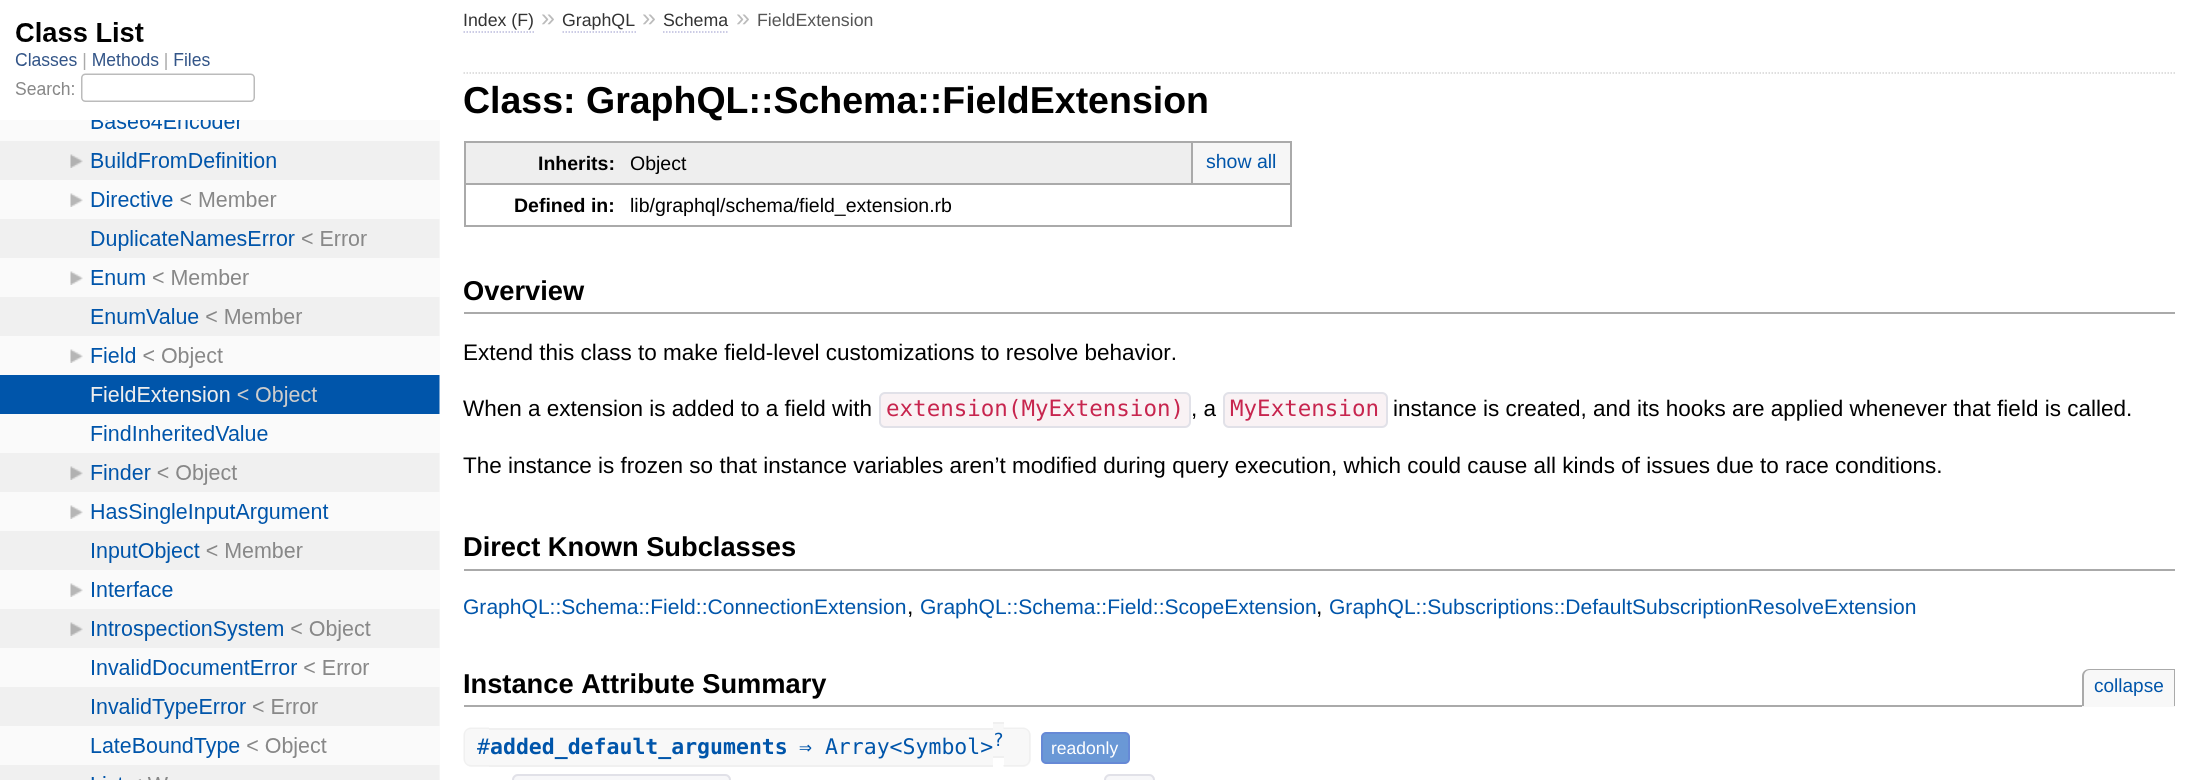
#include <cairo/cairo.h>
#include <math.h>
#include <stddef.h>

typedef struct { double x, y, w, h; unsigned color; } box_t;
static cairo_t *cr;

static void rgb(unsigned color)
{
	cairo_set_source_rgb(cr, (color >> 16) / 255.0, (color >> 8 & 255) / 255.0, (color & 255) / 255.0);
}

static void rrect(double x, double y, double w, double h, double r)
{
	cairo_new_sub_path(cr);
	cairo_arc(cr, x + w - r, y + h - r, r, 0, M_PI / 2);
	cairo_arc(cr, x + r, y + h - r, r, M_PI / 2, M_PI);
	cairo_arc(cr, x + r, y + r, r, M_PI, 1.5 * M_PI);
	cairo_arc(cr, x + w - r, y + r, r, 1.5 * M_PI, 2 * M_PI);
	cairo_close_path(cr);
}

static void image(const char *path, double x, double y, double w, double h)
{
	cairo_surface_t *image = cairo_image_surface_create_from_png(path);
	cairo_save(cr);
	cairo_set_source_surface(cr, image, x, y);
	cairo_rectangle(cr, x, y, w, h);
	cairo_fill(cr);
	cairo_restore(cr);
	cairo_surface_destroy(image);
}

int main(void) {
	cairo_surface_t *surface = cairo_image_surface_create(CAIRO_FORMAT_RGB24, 2198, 780);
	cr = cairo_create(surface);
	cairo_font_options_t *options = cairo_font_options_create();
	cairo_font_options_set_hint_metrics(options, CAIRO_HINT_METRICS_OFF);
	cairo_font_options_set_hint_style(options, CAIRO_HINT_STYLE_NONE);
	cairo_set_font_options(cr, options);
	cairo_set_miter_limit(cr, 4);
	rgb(0xffffff);
	cairo_paint(cr);
	image("img/1.png", 0, 0, 440, 780);
	cairo_new_path(cr);
	cairo_move_to(cr, 463.5, 32);
	cairo_line_to(cr, 534, 32);
	rgb(0xbbbbdd);
	cairo_set_line_width(cr, 1.5);
	cairo_set_dash(cr, (double[]){1.5, 1.5}, 2, 0);
	cairo_stroke(cr);
	cairo_new_path(cr);
	cairo_move_to(cr, 562.5, 32);
	cairo_line_to(cr, 636, 32);
	cairo_stroke(cr);
	cairo_new_path(cr);
	cairo_move_to(cr, 663, 32);
	cairo_line_to(cr, 729, 32);
	cairo_stroke(cr);
	cairo_new_path(cr);
	cairo_move_to(cr, 463.5, 73);
	cairo_line_to(cr, 2175, 73);
	rgb(0xd5d5d5);
	cairo_stroke(cr);
	{
		static const box_t items[] = {
			{466, 143, 725, 40, 0xeeeeee},
			{464, 141, 828, 2, 0xaaaaaa},
			{464, 141, 2, 42, 0xaaaaaa},
			{464, 183, 828, 2, 0xaaaaaa},
			{1290, 141, 2, 86, 0xaaaaaa},
			{1193, 143, 97, 40, 0xf6f6f6},
			{1191, 143, 2, 40, 0xaaaaaa},
			{464, 225, 166, 2, 0xaaaaaa},
			{464, 183, 2, 44, 0xaaaaaa},
			{630, 225, 662, 2, 0xaaaaaa},
			{464, 312, 1711, 2, 0xaaaaaa},
		};
		for (size_t i = 0; i < sizeof items / sizeof *items; i++) {
			rgb(items[i].color);
			cairo_rectangle(cr, items[i].x, items[i].y, items[i].w, items[i].h);
			cairo_fill(cr);
		}
	}
	rgb(0xf9f2f4);
	rrect(880, 393, 310, 34, 5);
	cairo_fill_preserve(cr);
	rgb(0xe1e1e8);
	cairo_set_line_width(cr, 2);
	cairo_set_dash(cr, NULL, 0, 0);
	cairo_stroke(cr);
	rgb(0xf9f2f4);
	rrect(1224, 393, 163, 34, 5);
	cairo_fill_preserve(cr);
	rgb(0xe1e1e8);
	cairo_stroke(cr);
	rgb(0xaaaaaa);
	cairo_rectangle(cr, 464, 569, 1711, 2);
	cairo_fill(cr);
	cairo_rectangle(cr, 464, 705, 1618, 2);
	cairo_fill(cr);
	rgb(0xf8f8f8);
	cairo_new_path(cr);
	cairo_move_to(cr, 2090, 669);
	cairo_line_to(cr, 2175, 669);
	cairo_line_to(cr, 2175, 707);
	cairo_line_to(cr, 2082, 707);
	cairo_line_to(cr, 2082, 677);
	cairo_curve_to(cr, 2082, 672.5, 2085.5, 669, 2090, 669);
	cairo_close_path(cr);
	cairo_fill(cr);
	rgb(0xaaaaaa);
	cairo_set_fill_rule(cr, CAIRO_FILL_RULE_EVEN_ODD);
	cairo_new_path(cr);
	cairo_move_to(cr, 2090, 669);
	cairo_line_to(cr, 2175, 669);
	cairo_line_to(cr, 2175, 706);
	cairo_line_to(cr, 2082, 706);
	cairo_line_to(cr, 2082, 676);
	cairo_curve_to(cr, 2082, 672, 2085, 669, 2090, 669);
	cairo_close_path(cr);
	cairo_move_to(cr, 2090, 670);
	cairo_line_to(cr, 2174, 670);
	cairo_line_to(cr, 2174, 706);
	cairo_line_to(cr, 2084, 706);
	cairo_line_to(cr, 2084, 676);
	cairo_curve_to(cr, 2084, 673, 2086, 670, 2090, 670);
	cairo_close_path(cr);
	cairo_fill(cr);
	rgb(0xf8f8f8);
	cairo_new_path(cr);
	cairo_move_to(cr, 472, 728);
	cairo_line_to(cr, 489, 728);
	cairo_line_to(cr, 489, 767);
	cairo_line_to(cr, 472, 767);
	cairo_curve_to(cr, 467.5, 767, 464, 763.5, 464, 759);
	cairo_line_to(cr, 464, 736);
	cairo_curve_to(cr, 464, 731.5, 467.5, 728, 472, 728);
	cairo_close_path(cr);
	cairo_fill(cr);
	rgb(0xf0f0f0);
	cairo_new_path(cr);
	cairo_move_to(cr, 471, 727.5);
	cairo_line_to(cr, 489, 727.5);
	cairo_line_to(cr, 489, 766.5);
	cairo_line_to(cr, 471, 766.5);
	cairo_curve_to(cr, 467, 766.5, 463.5, 763, 463.5, 759);
	cairo_line_to(cr, 463.5, 735);
	cairo_curve_to(cr, 463.5, 731, 467, 727.5, 471, 727.5);
	cairo_close_path(cr);
	cairo_move_to(cr, 471, 729);
	cairo_line_to(cr, 489, 729);
	cairo_line_to(cr, 489, 765);
	cairo_line_to(cr, 471, 765);
	cairo_curve_to(cr, 467.5, 765, 465, 762.5, 465, 759);
	cairo_line_to(cr, 465, 735);
	cairo_curve_to(cr, 465, 731.5, 467.5, 729, 471, 729);
	cairo_close_path(cr);
	cairo_fill(cr);
	{
		static const box_t items[] = {
			{489, 765, 504, 2, 0xf0f0f0},
			{489, 730, 504, 35, 0xf8f8f8},
			{993, 756, 11, 2, 0xf0f0f0},
		};
		for (size_t i = 0; i < sizeof items / sizeof *items; i++) {
			rgb(items[i].color);
			cairo_rectangle(cr, items[i].x, items[i].y, items[i].w, items[i].h);
			cairo_fill(cr);
		}
	}
	rgb(0xf8f8f8);
	cairo_new_path(cr);
	cairo_move_to(cr, 1004, 728);
	cairo_line_to(cr, 1023, 728);
	cairo_curve_to(cr, 1027.5, 728, 1031, 731.5, 1031, 736);
	cairo_line_to(cr, 1031, 759);
	cairo_curve_to(cr, 1031, 763.5, 1027.5, 767, 1023, 767);
	cairo_line_to(cr, 1004, 767);
	cairo_close_path(cr);
	cairo_fill(cr);
	cairo_rectangle(cr, 993, 724, 11, 32);
	cairo_fill(cr);
	rgb(0xf0f0f0);
	cairo_new_path(cr);
	cairo_move_to(cr, 1003.5, 727.5);
	cairo_line_to(cr, 1023, 727.5);
	cairo_curve_to(cr, 1027, 727.5, 1030.5, 731, 1030.5, 735);
	cairo_line_to(cr, 1030.5, 759);
	cairo_curve_to(cr, 1030.5, 763, 1027, 766.5, 1023, 766.5);
	cairo_line_to(cr, 1003.5, 766.5);
	cairo_close_path(cr);
	cairo_move_to(cr, 1003.5, 729);
	cairo_line_to(cr, 1023, 729);
	cairo_curve_to(cr, 1026.5, 729, 1029, 731.5, 1029, 735);
	cairo_line_to(cr, 1029, 759);
	cairo_curve_to(cr, 1029, 762.5, 1026.5, 765, 1023, 765);
	cairo_line_to(cr, 1003.5, 765);
	cairo_close_path(cr);
	cairo_fill(cr);
	cairo_rectangle(cr, 489, 728, 504, 2);
	cairo_fill(cr);
	cairo_rectangle(cr, 993, 722, 11, 2);
	cairo_fill(cr);
	rgb(0x6a98d6);
	rrect(1042, 733, 87, 30, 4);
	cairo_fill_preserve(cr);
	rgb(0x6689d6);
	cairo_stroke(cr);
	rgb(0xf7f7f9);
	cairo_new_path(cr);
	cairo_move_to(cr, 518, 774);
	cairo_line_to(cr, 725, 774);
	cairo_curve_to(cr, 728.5, 774, 731, 776.5, 731, 780);
	cairo_line_to(cr, 512, 780);
	cairo_curve_to(cr, 512, 776.5, 514.5, 774, 518, 774);
	cairo_close_path(cr);
	cairo_fill(cr);
	rrect(513, 775, 217, 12, 5);
	rgb(0xe1e1e8);
	cairo_stroke(cr);
	rgb(0xf7f7f9);
	cairo_new_path(cr);
	cairo_move_to(cr, 1110, 774);
	cairo_line_to(cr, 1149, 774);
	cairo_curve_to(cr, 1152.5, 774, 1155, 776.5, 1155, 780);
	cairo_line_to(cr, 1104, 780);
	cairo_curve_to(cr, 1104, 776.5, 1106.5, 774, 1110, 774);
	cairo_close_path(cr);
	cairo_fill(cr);
	rrect(1105, 775, 49, 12, 5);
	rgb(0xe1e1e8);
	cairo_stroke(cr);
	cairo_select_font_face(cr, "Liberation Sans", CAIRO_FONT_SLANT_NORMAL, CAIRO_FONT_WEIGHT_NORMAL);
	cairo_set_font_size(cr, 17.75);
	rgb(0x333333);
	cairo_move_to(cr, 463, 26);
	cairo_show_text(cr, "Index (F)");
	cairo_set_font_size(cr, 25);
	rgb(0xbbbbbb);
	cairo_move_to(cr, 541, 26);
	cairo_show_text(cr, "»");
	cairo_set_font_size(cr, 17.75);
	rgb(0x333333);
	cairo_move_to(cr, 562, 26);
	cairo_show_text(cr, "GraphQL");
	cairo_set_font_size(cr, 25);
	rgb(0xbbbbbb);
	cairo_move_to(cr, 642, 26);
	cairo_show_text(cr, "»");
	cairo_set_font_size(cr, 17.75);
	rgb(0x333333);
	cairo_move_to(cr, 663, 26);
	cairo_show_text(cr, "Schema");
	cairo_set_font_size(cr, 25);
	rgb(0xbbbbbb);
	cairo_move_to(cr, 736, 26);
	cairo_show_text(cr, "»");
	cairo_set_font_size(cr, 17.75);
	rgb(0x555555);
	cairo_move_to(cr, 757, 26);
	cairo_show_text(cr, "FieldExtension");
	cairo_select_font_face(cr, "Liberation Sans", CAIRO_FONT_SLANT_NORMAL, CAIRO_FONT_WEIGHT_BOLD);
	cairo_set_font_size(cr, 37.5);
	rgb(0x000000);
	cairo_move_to(cr, 463, 113);
	cairo_show_text(cr, "Class: GraphQL::Schema::FieldExtension");
	cairo_set_font_size(cr, 19.5);
	cairo_move_to(cr, 538, 170);
	cairo_show_text(cr, "Inherits:");
	cairo_select_font_face(cr, "Liberation Sans", CAIRO_FONT_SLANT_NORMAL, CAIRO_FONT_WEIGHT_NORMAL);
	cairo_move_to(cr, 630, 170);
	cairo_show_text(cr, "Object");
	rgb(0x0055aa);
	cairo_move_to(cr, 1206, 168);
	cairo_show_text(cr, "show all");
	cairo_select_font_face(cr, "Liberation Sans", CAIRO_FONT_SLANT_NORMAL, CAIRO_FONT_WEIGHT_BOLD);
	rgb(0x000000);
	cairo_move_to(cr, 514, 212);
	cairo_show_text(cr, "Defined in:");
	cairo_select_font_face(cr, "Liberation Sans", CAIRO_FONT_SLANT_NORMAL, CAIRO_FONT_WEIGHT_NORMAL);
	cairo_move_to(cr, 630, 212);
	cairo_show_text(cr, "lib/graphql/schema/field_extension.rb");
	cairo_select_font_face(cr, "Liberation Sans", CAIRO_FONT_SLANT_NORMAL, CAIRO_FONT_WEIGHT_BOLD);
	cairo_set_font_size(cr, 27.25);
	cairo_move_to(cr, 463, 300);
	cairo_show_text(cr, "Overview");
	cairo_select_font_face(cr, "Liberation Sans", CAIRO_FONT_SLANT_NORMAL, CAIRO_FONT_WEIGHT_NORMAL);
	cairo_set_font_size(cr, 22.5);
	cairo_move_to(cr, 463, 360);
	cairo_show_text(cr, "Extend this class to make field-level customizations to resolve behavior.");
	cairo_move_to(cr, 463, 416);
	cairo_show_text(cr, "When a extension is added to a field with");
	cairo_select_font_face(cr, "DejaVu Sans Mono", CAIRO_FONT_SLANT_NORMAL, CAIRO_FONT_WEIGHT_NORMAL);
	rgb(0xc7254e);
	cairo_move_to(cr, 886, 416);
	cairo_show_text(cr, "extension(MyExtension)");
	cairo_select_font_face(cr, "Liberation Sans", CAIRO_FONT_SLANT_NORMAL, CAIRO_FONT_WEIGHT_NORMAL);
	rgb(0x000000);
	cairo_move_to(cr, 1191, 416);
	cairo_show_text(cr, ", a");
	cairo_select_font_face(cr, "DejaVu Sans Mono", CAIRO_FONT_SLANT_NORMAL, CAIRO_FONT_WEIGHT_NORMAL);
	rgb(0xc7254e);
	cairo_move_to(cr, 1230, 416);
	cairo_show_text(cr, "MyExtension");
	cairo_select_font_face(cr, "Liberation Sans", CAIRO_FONT_SLANT_NORMAL, CAIRO_FONT_WEIGHT_NORMAL);
	rgb(0x000000);
	cairo_move_to(cr, 1393, 416);
	cairo_show_text(cr, "instance is created, and its hooks are applied whenever that field is called.");
	cairo_move_to(cr, 463, 473);
	cairo_show_text(cr, "The instance is frozen so that instance variables aren’t modified during query execution, which could cause all kinds of issues due to race conditions.");
	cairo_select_font_face(cr, "Liberation Sans", CAIRO_FONT_SLANT_NORMAL, CAIRO_FONT_WEIGHT_BOLD);
	cairo_set_font_size(cr, 27.25);
	cairo_move_to(cr, 463, 556);
	cairo_show_text(cr, "Direct Known Subclasses");
	cairo_select_font_face(cr, "Liberation Sans", CAIRO_FONT_SLANT_NORMAL, CAIRO_FONT_WEIGHT_NORMAL);
	cairo_set_font_size(cr, 21.05);
	rgb(0x0055aa);
	cairo_move_to(cr, 463, 614);
	cairo_show_text(cr, "GraphQL::Schema::Field::ConnectionExtension");
	cairo_set_font_size(cr, 23);
	rgb(0x000000);
	cairo_move_to(cr, 907, 614);
	cairo_show_text(cr, ",");
	cairo_set_font_size(cr, 21.05);
	rgb(0x0055aa);
	cairo_move_to(cr, 920, 614);
	cairo_show_text(cr, "GraphQL::Schema::Field::ScopeExtension");
	cairo_set_font_size(cr, 23);
	rgb(0x000000);
	cairo_move_to(cr, 1316, 614);
	cairo_show_text(cr, ",");
	cairo_set_font_size(cr, 21.05);
	rgb(0x0055aa);
	cairo_move_to(cr, 1329, 614);
	cairo_show_text(cr, "GraphQL::Subscriptions::DefaultSubscriptionResolveExtension");
	cairo_select_font_face(cr, "Liberation Sans", CAIRO_FONT_SLANT_NORMAL, CAIRO_FONT_WEIGHT_BOLD);
	cairo_set_font_size(cr, 27.25);
	rgb(0x000000);
	cairo_move_to(cr, 463, 693);
	cairo_show_text(cr, "Instance Attribute Summary");
	cairo_select_font_face(cr, "Liberation Sans", CAIRO_FONT_SLANT_NORMAL, CAIRO_FONT_WEIGHT_NORMAL);
	cairo_set_font_size(cr, 19);
	rgb(0x0055aa);
	cairo_move_to(cr, 2094, 692);
	cairo_show_text(cr, "collapse");
	cairo_select_font_face(cr, "DejaVu Sans Mono", CAIRO_FONT_SLANT_NORMAL, CAIRO_FONT_WEIGHT_NORMAL);
	cairo_set_font_size(cr, 21.5);
	cairo_move_to(cr, 477, 754);
	cairo_show_text(cr, "#");
	cairo_select_font_face(cr, "DejaVu Sans Mono", CAIRO_FONT_SLANT_NORMAL, CAIRO_FONT_WEIGHT_BOLD);
	cairo_move_to(cr, 490, 754);
	cairo_show_text(cr, "added_default_arguments");
	cairo_select_font_face(cr, "DejaVu Sans Mono", CAIRO_FONT_SLANT_NORMAL, CAIRO_FONT_WEIGHT_NORMAL);
	cairo_move_to(cr, 799, 754);
	cairo_show_text(cr, "⇒ Array<Symbol>");
	cairo_set_font_size(cr, 18);
	cairo_move_to(cr, 993, 746);
	cairo_show_text(cr, "?");
	cairo_select_font_face(cr, "Liberation Sans", CAIRO_FONT_SLANT_NORMAL, CAIRO_FONT_WEIGHT_NORMAL);
	cairo_set_font_size(cr, 17.5);
	rgb(0xffffff);
	cairo_move_to(cr, 1051, 754);
	cairo_show_text(cr, "readonly");
	cairo_surface_write_to_png(surface, "page.png");
	cairo_font_options_destroy(options);
	cairo_destroy(cr);
	cairo_surface_destroy(surface);
	return 0;
}
